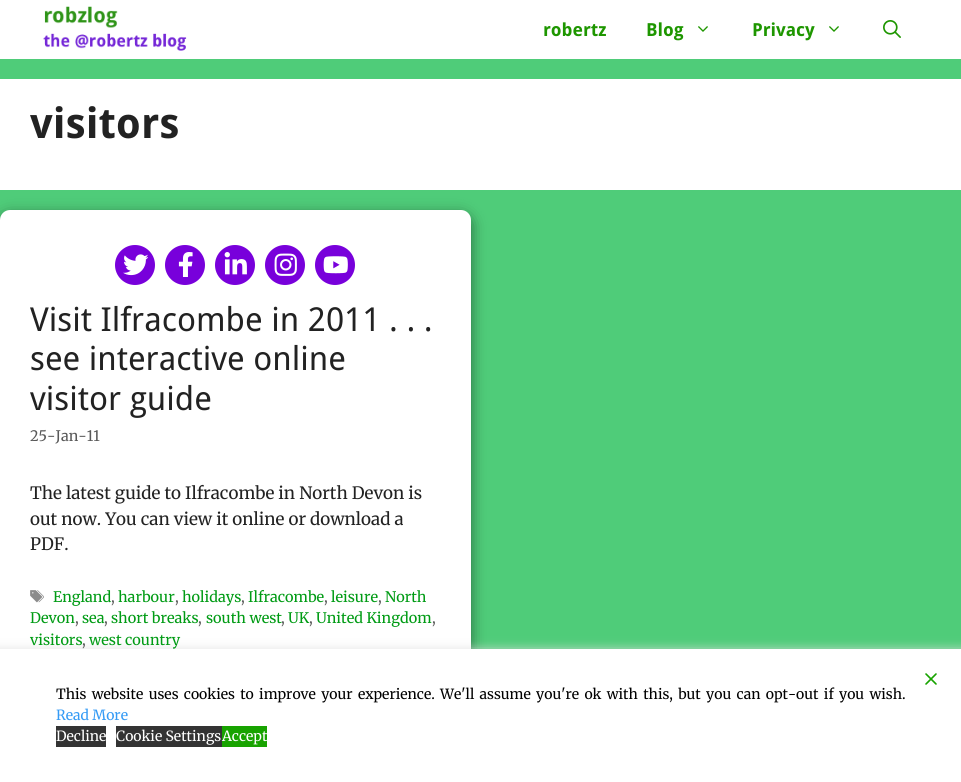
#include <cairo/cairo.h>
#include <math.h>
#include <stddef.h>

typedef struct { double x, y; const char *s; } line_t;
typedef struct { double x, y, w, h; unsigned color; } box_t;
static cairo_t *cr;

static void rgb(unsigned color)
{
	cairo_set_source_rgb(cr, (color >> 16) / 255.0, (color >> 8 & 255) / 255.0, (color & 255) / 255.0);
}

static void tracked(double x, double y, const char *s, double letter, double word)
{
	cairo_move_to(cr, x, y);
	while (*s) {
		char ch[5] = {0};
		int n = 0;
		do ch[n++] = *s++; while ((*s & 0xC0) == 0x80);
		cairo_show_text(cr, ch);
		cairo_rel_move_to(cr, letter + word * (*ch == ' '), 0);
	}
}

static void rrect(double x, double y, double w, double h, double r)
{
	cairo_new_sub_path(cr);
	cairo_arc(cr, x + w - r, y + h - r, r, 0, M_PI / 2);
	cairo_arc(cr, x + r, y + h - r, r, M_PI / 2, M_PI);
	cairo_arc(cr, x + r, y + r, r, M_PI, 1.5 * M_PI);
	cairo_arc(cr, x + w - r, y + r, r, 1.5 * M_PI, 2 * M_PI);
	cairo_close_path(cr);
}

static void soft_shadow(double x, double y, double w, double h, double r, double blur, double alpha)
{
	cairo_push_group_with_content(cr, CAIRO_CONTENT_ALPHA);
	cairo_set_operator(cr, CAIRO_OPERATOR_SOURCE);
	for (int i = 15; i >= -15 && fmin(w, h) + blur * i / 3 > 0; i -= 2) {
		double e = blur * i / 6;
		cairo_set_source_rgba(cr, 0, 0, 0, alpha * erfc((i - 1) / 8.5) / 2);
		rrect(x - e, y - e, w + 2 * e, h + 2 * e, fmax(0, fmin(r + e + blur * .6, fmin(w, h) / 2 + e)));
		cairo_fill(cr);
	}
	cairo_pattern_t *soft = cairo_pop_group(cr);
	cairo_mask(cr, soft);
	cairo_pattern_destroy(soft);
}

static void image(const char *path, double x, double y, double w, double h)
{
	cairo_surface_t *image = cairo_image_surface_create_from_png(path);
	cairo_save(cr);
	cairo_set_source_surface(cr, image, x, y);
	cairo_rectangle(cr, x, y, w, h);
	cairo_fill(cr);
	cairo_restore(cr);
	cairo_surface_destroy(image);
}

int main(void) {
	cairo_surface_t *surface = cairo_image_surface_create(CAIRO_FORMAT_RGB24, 961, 782);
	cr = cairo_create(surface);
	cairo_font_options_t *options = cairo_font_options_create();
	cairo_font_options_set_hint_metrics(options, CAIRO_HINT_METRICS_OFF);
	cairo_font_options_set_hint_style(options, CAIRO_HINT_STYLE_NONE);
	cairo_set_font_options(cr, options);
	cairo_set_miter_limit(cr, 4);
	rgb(0x4fcc79);
	cairo_paint(cr);
	rgb(0xffffff);
	cairo_rectangle(cr, 0, 0, 961, 59);
	cairo_fill(cr);
	image("img/1.png", 43, 6, 144, 45);
	image("img/2.png", 698, 26, 10, 6);
	image("img/2.png", 829, 26, 10, 6);
	image("img/3.png", 883, 20, 18, 18);
	cairo_rectangle(cr, 0, 79, 961, 111);
	cairo_fill(cr);
	rgb(0x000000);
	soft_shadow(0, 215, 471, 482, 10, 7.5, 0.5);
	rgb(0xffffff);
	rrect(0, 210, 471, 482, 10);
	cairo_fill(cr);
	rgb(0x7800db);
	cairo_arc(cr, 135, 265, 20, 0, 2 * M_PI);
	cairo_fill(cr);
	image("img/4.png", 123, 254, 25, 22);
	cairo_arc(cr, 185, 265, 20, 0, 2 * M_PI);
	cairo_fill(cr);
	image("img/5.png", 178, 252, 15, 25);
	cairo_arc(cr, 235, 265, 20, 0, 2 * M_PI);
	cairo_fill(cr);
	image("img/6.png", 224, 252, 23, 23);
	cairo_arc(cr, 285, 265, 20, 0, 2 * M_PI);
	cairo_fill(cr);
	image("img/7.png", 274, 253, 23, 23);
	cairo_arc(cr, 335, 265, 20, 0, 2 * M_PI);
	cairo_fill(cr);
	image("img/8.png", 323, 256, 25, 18);
	image("img/9.png", 30, 590, 14, 13);
	rgb(0xdddddd);
	soft_shadow(-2, 650, 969, 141, 0, 5.5, 1);
	rgb(0xffffff);
	cairo_rectangle(cr, 0, 649, 961, 133);
	cairo_fill(cr);
	image("img/10.png", 925, 673, 12, 12);
	{
		static const box_t items[] = {
			{56, 726, 50, 21, 0x333333},
			{116, 726, 106, 21, 0x333333},
			{222, 726, 45, 21, 0x18a300},
		};
		for (size_t i = 0; i < sizeof items / sizeof *items; i++) {
			rgb(items[i].color);
			cairo_rectangle(cr, items[i].x, items[i].y, items[i].w, items[i].h);
			cairo_fill(cr);
		}
	}
	cairo_select_font_face(cr, "Droid Sans", CAIRO_FONT_SLANT_NORMAL, CAIRO_FONT_WEIGHT_BOLD);
	cairo_set_font_size(cr, 18);
	rgb(0x1e9600);
	{
		static const line_t items[] = {
			{543, 36, "robertz"},
			{646, 36, "Blog"},
			{752, 36, "Privacy"},
		};
		for (size_t i = 0; i < sizeof items / sizeof *items; i++) {
			cairo_move_to(cr, items[i].x, items[i].y);
			cairo_show_text(cr, items[i].s);
		}
	}
	cairo_set_font_size(cr, 42);
	rgb(0x222222);
	cairo_move_to(cr, 30, 138);
	cairo_show_text(cr, "visitors");
	cairo_select_font_face(cr, "Droid Sans", CAIRO_FONT_SLANT_NORMAL, CAIRO_FONT_WEIGHT_NORMAL);
	cairo_set_font_size(cr, 33);
	{
		static const line_t items[] = {
			{30, 331, "Visit Ilfracombe in 2011 . . ."},
			{30, 370, "see interactive online"},
			{30, 410, "visitor guide"},
		};
		for (size_t i = 0; i < sizeof items / sizeof *items; i++) {
			cairo_move_to(cr, items[i].x, items[i].y);
			cairo_show_text(cr, items[i].s);
		}
	}
	cairo_select_font_face(cr, "Merriweather", CAIRO_FONT_SLANT_NORMAL, CAIRO_FONT_WEIGHT_NORMAL);
	cairo_set_font_size(cr, 14.5);
	rgb(0x595959);
	cairo_move_to(cr, 30, 441);
	cairo_show_text(cr, "25-Jan-11");
	cairo_set_font_size(cr, 17);
	rgb(0x222222);
	{
		static const line_t items[] = {
			{30, 499, "The latest guide to Ilfracombe in North Devon is"},
			{30, 525, "out now. You can view it online or download a"},
			{30, 550, "PDF."},
		};
		for (size_t i = 0; i < sizeof items / sizeof *items; i++) {
			cairo_move_to(cr, items[i].x, items[i].y);
			cairo_show_text(cr, items[i].s);
		}
	}
	cairo_set_font_size(cr, 14.5);
	rgb(0x009b14);
	cairo_move_to(cr, 53, 602);
	cairo_show_text(cr, "England");
	rgb(0x595959);
	cairo_move_to(cr, 111, 602);
	cairo_show_text(cr, ",");
	rgb(0x009b14);
	cairo_move_to(cr, 118, 602);
	cairo_show_text(cr, "harbour");
	rgb(0x595959);
	cairo_move_to(cr, 175, 602);
	cairo_show_text(cr, ",");
	rgb(0x009b14);
	cairo_move_to(cr, 182, 602);
	cairo_show_text(cr, "holidays");
	rgb(0x595959);
	cairo_move_to(cr, 241, 602);
	cairo_show_text(cr, ",");
	rgb(0x009b14);
	cairo_move_to(cr, 248, 602);
	cairo_show_text(cr, "Ilfracombe");
	rgb(0x595959);
	cairo_move_to(cr, 324, 602);
	cairo_show_text(cr, ",");
	rgb(0x009b14);
	cairo_move_to(cr, 331, 602);
	cairo_show_text(cr, "leisure");
	rgb(0x595959);
	cairo_move_to(cr, 378, 602);
	cairo_show_text(cr, ",");
	rgb(0x009b14);
	cairo_move_to(cr, 385, 602);
	cairo_show_text(cr, "North");
	cairo_move_to(cr, 30, 623);
	cairo_show_text(cr, "Devon");
	rgb(0x595959);
	cairo_move_to(cr, 75, 623);
	cairo_show_text(cr, ",");
	rgb(0x009b14);
	cairo_move_to(cr, 82, 623);
	cairo_show_text(cr, "sea");
	rgb(0x595959);
	cairo_move_to(cr, 104, 623);
	cairo_show_text(cr, ",");
	rgb(0x009b14);
	cairo_move_to(cr, 111, 623);
	cairo_show_text(cr, "short breaks");
	rgb(0x595959);
	cairo_move_to(cr, 198, 623);
	cairo_show_text(cr, ",");
	rgb(0x009b14);
	cairo_move_to(cr, 206, 623);
	cairo_show_text(cr, "south west");
	rgb(0x595959);
	cairo_move_to(cr, 281, 623);
	cairo_show_text(cr, ",");
	rgb(0x009b14);
	cairo_move_to(cr, 288, 623);
	cairo_show_text(cr, "UK");
	rgb(0x595959);
	cairo_move_to(cr, 309, 623);
	cairo_show_text(cr, ",");
	rgb(0x009b14);
	cairo_move_to(cr, 316, 623);
	cairo_show_text(cr, "United Kingdom");
	rgb(0x595959);
	cairo_move_to(cr, 432, 623);
	cairo_show_text(cr, ",");
	rgb(0x009b14);
	cairo_move_to(cr, 30, 645);
	cairo_show_text(cr, "visitors");
	rgb(0x595959);
	cairo_move_to(cr, 82, 645);
	cairo_show_text(cr, ",");
	rgb(0x009b14);
	cairo_move_to(cr, 89, 645);
	cairo_show_text(cr, "west country");
	cairo_set_font_size(cr, 14);
	rgb(0x000000);
	tracked(56, 699, "This website uses cookies to improve your experience. We'll assume you're ok with this, but you can opt-out if you wish.", 0, 2);
	rgb(0x359bf5);
	cairo_move_to(cr, 56, 720);
	cairo_show_text(cr, "Read More");
	rgb(0xffffff);
	{
		static const line_t items[] = {
			{56, 741, "Decline"},
			{116, 741, "Cookie Settings"},
			{222, 741, "Accept"},
		};
		for (size_t i = 0; i < sizeof items / sizeof *items; i++) {
			cairo_move_to(cr, items[i].x, items[i].y);
			cairo_show_text(cr, items[i].s);
		}
	}
	cairo_surface_write_to_png(surface, "page.png");
	cairo_font_options_destroy(options);
	cairo_destroy(cr);
	cairo_surface_destroy(surface);
	return 0;
}
